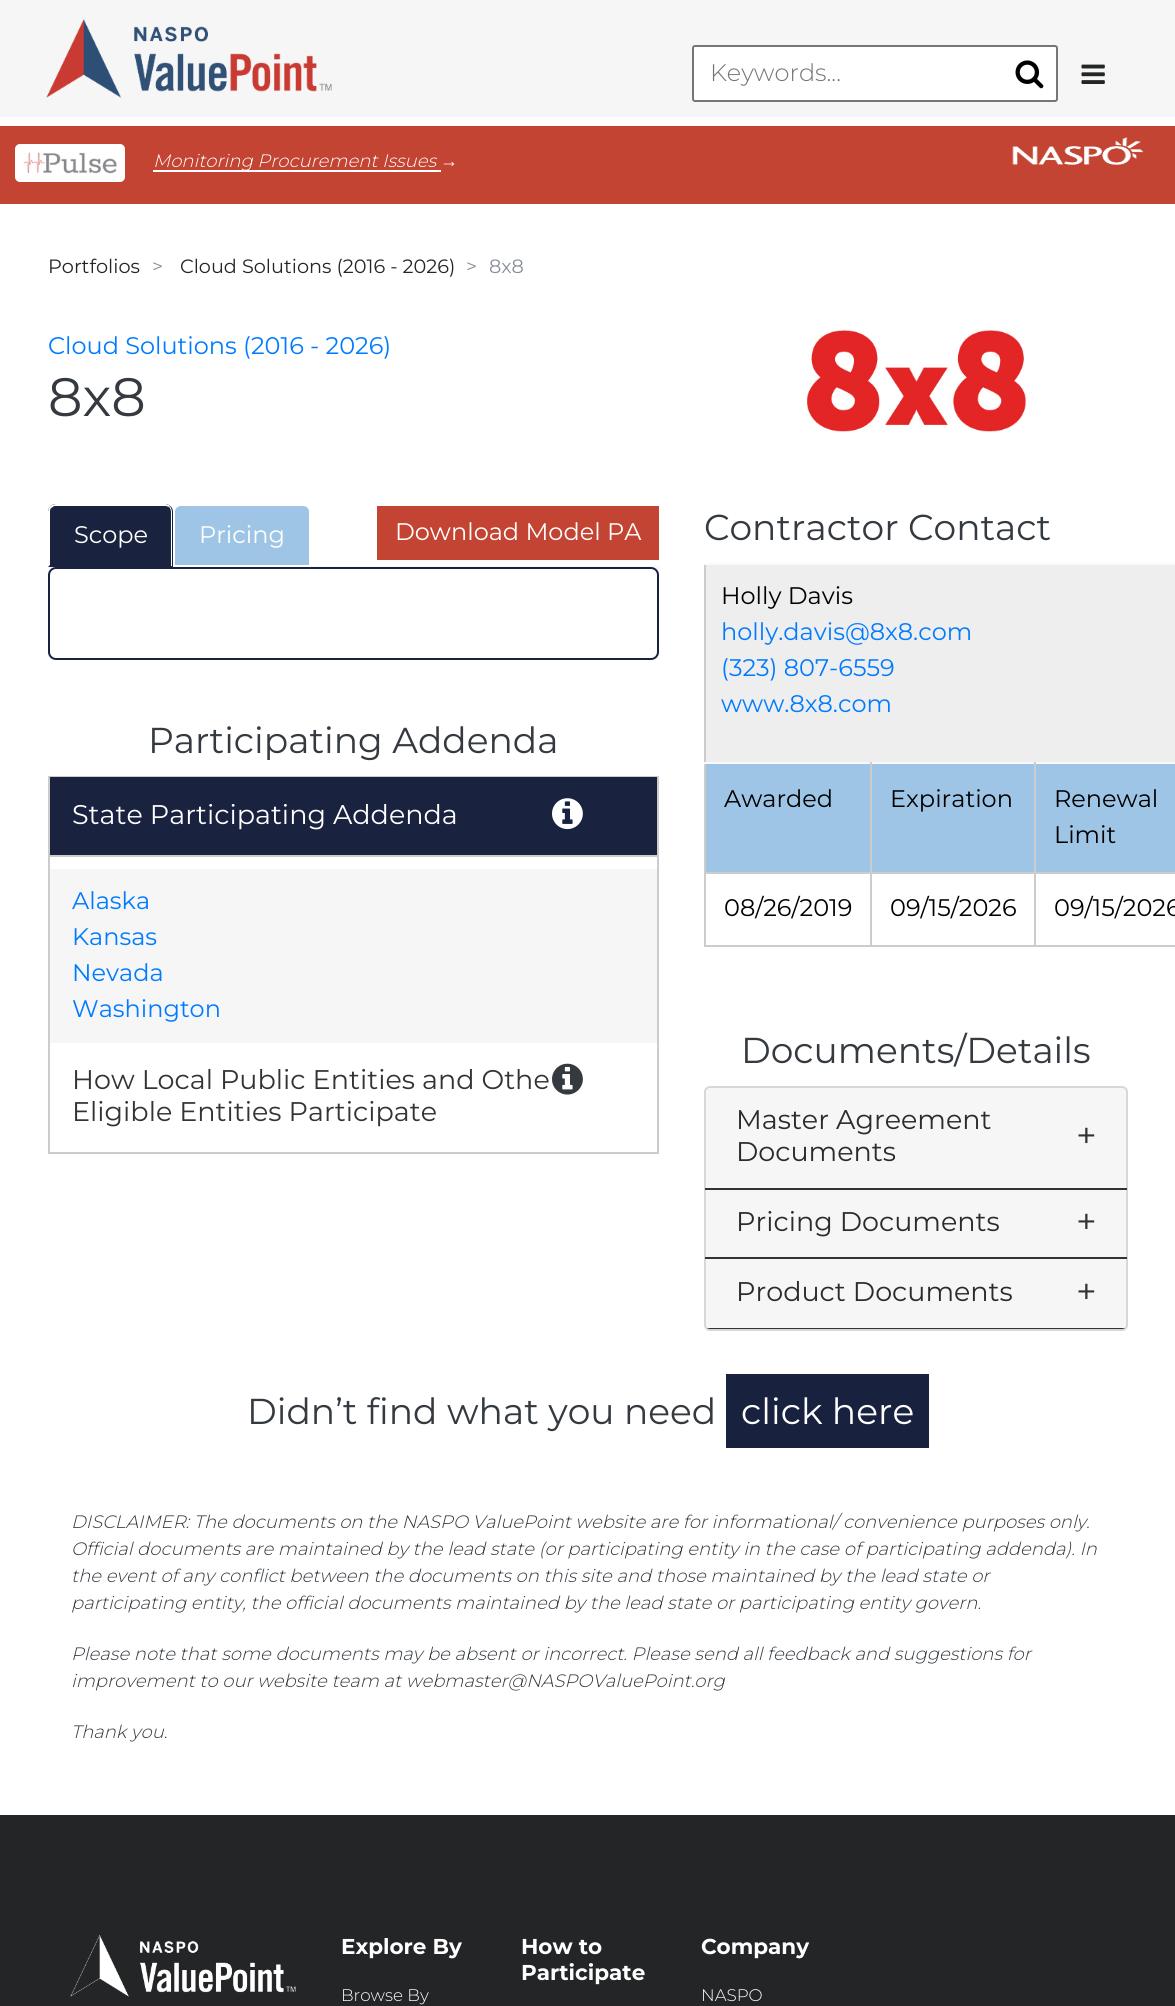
#include <cairo/cairo.h>
#include <math.h>
#include <stddef.h>

typedef struct { double x, y; const char *s; } line_t;
typedef struct { double x, y, w, h; unsigned color; } box_t;
static cairo_t *cr;

static void rgb(unsigned color)
{
	cairo_set_source_rgb(cr, (color >> 16) / 255.0, (color >> 8 & 255) / 255.0, (color & 255) / 255.0);
}

static void rrect(double x, double y, double w, double h, double r)
{
	cairo_new_sub_path(cr);
	cairo_arc(cr, x + w - r, y + h - r, r, 0, M_PI / 2);
	cairo_arc(cr, x + r, y + h - r, r, M_PI / 2, M_PI);
	cairo_arc(cr, x + r, y + r, r, M_PI, 1.5 * M_PI);
	cairo_arc(cr, x + w - r, y + r, r, 1.5 * M_PI, 2 * M_PI);
	cairo_close_path(cr);
}

static void image(const char *path, double x, double y, double w, double h)
{
	cairo_surface_t *image = cairo_image_surface_create_from_png(path);
	cairo_save(cr);
	cairo_set_source_surface(cr, image, x, y);
	cairo_rectangle(cr, x, y, w, h);
	cairo_fill(cr);
	cairo_restore(cr);
	cairo_surface_destroy(image);
}

int main(void) {
	cairo_surface_t *surface = cairo_image_surface_create(CAIRO_FORMAT_RGB24, 1175, 2006);
	cr = cairo_create(surface);
	cairo_font_options_t *options = cairo_font_options_create();
	cairo_font_options_set_hint_metrics(options, CAIRO_HINT_METRICS_OFF);
	cairo_font_options_set_hint_style(options, CAIRO_HINT_STYLE_NONE);
	cairo_set_font_options(cr, options);
	cairo_set_miter_limit(cr, 4);
	rgb(0xffffff);
	cairo_paint(cr);
	rgb(0xf6f6f6);
	cairo_rectangle(cr, 0, 0, 1175, 117);
	cairo_fill(cr);
	image("img/1.png", 46, 19, 286, 79);
	rgb(0xffffff);
	rrect(693, 46, 364, 55, 2);
	cairo_fill_preserve(cr);
	rgb(0x767676);
	cairo_stroke(cr);
	image("img/2.png", 1015, 60, 29, 29);
	image("img/3.png", 1081, 64, 24, 20);
	rgb(0xc34432);
	cairo_rectangle(cr, 0, 126, 1175, 78);
	cairo_fill(cr);
	rgb(0xffffff);
	rrect(15, 144, 110, 38, 5);
	cairo_fill(cr);
	image("img/4.png", 23, 152, 94, 22);
	cairo_rectangle(cr, 153, 170, 288, 2);
	cairo_fill(cr);
	image("img/5.png", 1012, 137, 132, 28);
	rgb(0xf8f9fa);
	cairo_rectangle(cr, 48, 566, 611, 2);
	cairo_fill(cr);
	rgb(0x19223e);
	cairo_new_path(cr);
	cairo_move_to(cr, 56, 504);
	cairo_line_to(cr, 165, 504);
	cairo_curve_to(cr, 169.5, 504, 173, 507.5, 173, 512);
	cairo_line_to(cr, 173, 567);
	cairo_line_to(cr, 48, 567);
	cairo_line_to(cr, 48, 512);
	cairo_curve_to(cr, 48, 507.5, 51.5, 504, 56, 504);
	cairo_close_path(cr);
	cairo_fill(cr);
	rgb(0xffffff);
	cairo_new_path(cr);
	cairo_move_to(cr, 56, 504);
	cairo_curve_to(cr, 54, 504, 52, 505, 50, 506);
	cairo_line_to(cr, 52, 508);
	cairo_curve_to(cr, 52, 507, 54, 506, 55, 506);
	cairo_line_to(cr, 166, 506);
	cairo_line_to(cr, 169, 507);
	cairo_line_to(cr, 170, 506);
	cairo_curve_to(cr, 169, 505, 167, 504, 165, 504);
	cairo_close_path(cr);
	cairo_fill(cr);
	cairo_new_path(cr);
	cairo_move_to(cr, 170, 506);
	cairo_curve_to(cr, 171, 508, 172, 510, 172, 512);
	cairo_line_to(cr, 172, 566);
	cairo_line_to(cr, 171, 566);
	cairo_line_to(cr, 171, 512);
	cairo_curve_to(cr, 171, 510, 170, 508, 169, 507);
	cairo_close_path(cr);
	cairo_fill(cr);
	cairo_new_path(cr);
	cairo_move_to(cr, 48, 567);
	cairo_line_to(cr, 50, 565);
	cairo_line_to(cr, 50, 512);
	cairo_curve_to(cr, 50, 510, 50, 508, 52, 508);
	cairo_line_to(cr, 50, 506);
	cairo_curve_to(cr, 49, 508, 48, 510, 48, 512);
	cairo_close_path(cr);
	cairo_fill(cr);
	rgb(0x9ec5e6);
	cairo_new_path(cr);
	cairo_move_to(cr, 181, 505);
	cairo_line_to(cr, 303, 505);
	cairo_curve_to(cr, 307, 505, 310, 508, 310, 512);
	cairo_line_to(cr, 310, 566);
	cairo_line_to(cr, 174, 566);
	cairo_line_to(cr, 174, 512);
	cairo_curve_to(cr, 174, 508, 177, 505, 181, 505);
	cairo_close_path(cr);
	cairo_fill_preserve(cr);
	rgb(0xffffff);
	cairo_stroke(cr);
	rgb(0xc34432);
	cairo_rectangle(cr, 377, 506, 282, 54);
	cairo_fill(cr);
	rrect(49, 568, 609, 91, 7);
	rgb(0x19223e);
	cairo_stroke(cr);
	{
		static const box_t items[] = {
			{48, 776, 611, 1, 0xcccccc},
			{657, 776, 2, 378, 0xcccccc},
			{48, 776, 2, 378, 0xcccccc},
			{50, 777, 607, 78, 0x19223e},
			{50, 855, 607, 2, 0xcccccc},
		};
		for (size_t i = 0; i < sizeof items / sizeof *items; i++) {
			rgb(items[i].color);
			cairo_rectangle(cr, items[i].x, items[i].y, items[i].w, items[i].h);
			cairo_fill(cr);
		}
	}
	image("img/6.png", 552, 798, 31, 32);
	rgb(0xf6f6f6);
	cairo_rectangle(cr, 50, 869, 607, 174);
	cairo_fill(cr);
	rgb(0xcccccc);
	cairo_rectangle(cr, 50, 1152, 607, 2);
	cairo_fill(cr);
	image("img/7.png", 552, 1063, 31, 32);
	image("img/8.png", 805, 329, 222, 103);
	{
		static const box_t items[] = {
			{704, 945, 471, 2, 0xcccccc},
			{704, 563, 2, 384, 0xcccccc},
			{706, 565, 469, 197, 0xeeeeee},
			{704, 563, 471, 2, 0xf8f9fa},
			{706, 764, 469, 108, 0x9ec5e6},
			{704, 762, 471, 2, 0xf8f9fa},
			{1034, 872, 2, 75, 0xcccccc},
			{1034, 872, 141, 2, 0xcccccc},
			{1034, 762, 2, 111, 0xcccccc},
			{870, 872, 2, 75, 0xcccccc},
			{870, 872, 165, 2, 0xcccccc},
			{870, 762, 2, 111, 0xcccccc},
			{704, 872, 168, 2, 0xcccccc},
		};
		for (size_t i = 0; i < sizeof items / sizeof *items; i++) {
			rgb(items[i].color);
			cairo_rectangle(cr, items[i].x, items[i].y, items[i].w, items[i].h);
			cairo_fill(cr);
		}
	}
	rgb(0xf6f6f6);
	rrect(705, 1087, 422, 243, 5);
	cairo_fill_preserve(cr);
	rgb(0xd7d7d7);
	cairo_stroke(cr);
	rgb(0x333333);
	cairo_rectangle(cr, 705, 1188, 422, 2);
	cairo_fill(cr);
	cairo_rectangle(cr, 705, 1257, 422, 2);
	cairo_fill(cr);
	cairo_save(cr);
	rrect(705, 1088, 422, 241, 5);
	cairo_clip(cr);
	cairo_rectangle(cr, 705, 1328, 422, 1);
	cairo_fill(cr);
	cairo_restore(cr);
	rgb(0x18213d);
	cairo_rectangle(cr, 726, 1374, 203, 74);
	cairo_fill(cr);
	rgb(0x232526);
	cairo_rectangle(cr, 0, 1815, 1175, 191);
	cairo_fill(cr);
	image("img/9.png", 70, 1935, 226, 62);
	cairo_select_font_face(cr, "Montserrat Light", CAIRO_FONT_SLANT_NORMAL, CAIRO_FONT_WEIGHT_NORMAL);
	cairo_set_font_size(cr, 24);
	rgb(0x757575);
	cairo_move_to(cr, 710, 81);
	cairo_show_text(cr, "Keywords...");
	cairo_select_font_face(cr, "Montserrat Light", CAIRO_FONT_SLANT_ITALIC, CAIRO_FONT_WEIGHT_NORMAL);
	cairo_set_font_size(cr, 18);
	rgb(0xffffff);
	cairo_move_to(cr, 153, 167);
	cairo_show_text(cr, "Monitoring Procurement Issues");
	cairo_select_font_face(cr, "Liberation Sans", CAIRO_FONT_SLANT_NORMAL, CAIRO_FONT_WEIGHT_NORMAL);
	cairo_move_to(cr, 440, 167);
	cairo_show_text(cr, "→");
	cairo_select_font_face(cr, "Montserrat", CAIRO_FONT_SLANT_NORMAL, CAIRO_FONT_WEIGHT_NORMAL);
	cairo_set_font_size(cr, 19.25);
	rgb(0x232526);
	cairo_move_to(cr, 48, 273);
	cairo_show_text(cr, "Portfolios");
	rgb(0x868e96);
	cairo_move_to(cr, 152, 273);
	cairo_show_text(cr, ">");
	rgb(0x232526);
	cairo_move_to(cr, 180, 273);
	cairo_show_text(cr, "Cloud Solutions (2016 - 2026)");
	rgb(0x868e96);
	cairo_move_to(cr, 466, 273);
	cairo_show_text(cr, ">");
	cairo_move_to(cr, 489, 273);
	cairo_show_text(cr, "8x8");
	cairo_set_font_size(cr, 24);
	rgb(0x007bff);
	cairo_move_to(cr, 48, 354);
	cairo_show_text(cr, "Cloud Solutions (2016 - 2026)");
	cairo_set_font_size(cr, 54);
	rgb(0x343a40);
	cairo_move_to(cr, 48, 416);
	cairo_show_text(cr, "8x8");
	cairo_set_font_size(cr, 24);
	rgb(0xffffff);
	{
		static const line_t items[] = {
			{74, 543, "Scope"},
			{199, 543, "Pricing"},
			{395, 540, "Download Model PA"},
		};
		for (size_t i = 0; i < sizeof items / sizeof *items; i++) {
			cairo_move_to(cr, items[i].x, items[i].y);
			cairo_show_text(cr, items[i].s);
		}
	}
	cairo_set_font_size(cr, 36);
	rgb(0x343a40);
	cairo_move_to(cr, 148, 753);
	cairo_show_text(cr, "Participating Addenda");
	cairo_set_font_size(cr, 27);
	rgb(0xffffff);
	cairo_move_to(cr, 72, 824);
	cairo_show_text(cr, "State Participating Addenda");
	cairo_set_font_size(cr, 24);
	rgb(0x007bff);
	{
		static const line_t items[] = {
			{72, 909, "Alaska"},
			{72, 945, "Kansas"},
			{72, 981, "Nevada"},
			{72, 1017, "Washington"},
		};
		for (size_t i = 0; i < sizeof items / sizeof *items; i++) {
			cairo_move_to(cr, items[i].x, items[i].y);
			cairo_show_text(cr, items[i].s);
		}
	}
	cairo_set_font_size(cr, 27);
	rgb(0x333333);
	cairo_move_to(cr, 72, 1089);
	cairo_show_text(cr, "How Local Public Entities and Othe");
	cairo_move_to(cr, 72, 1121);
	cairo_show_text(cr, "Eligible Entities Participate");
	cairo_set_font_size(cr, 36);
	rgb(0x343a40);
	cairo_move_to(cr, 704, 540);
	cairo_show_text(cr, "Contractor Contact");
	cairo_set_font_size(cr, 24);
	rgb(0x000000);
	cairo_move_to(cr, 721, 604);
	cairo_show_text(cr, "Holly Davis");
	rgb(0x007bff);
	{
		static const line_t items[] = {
			{721, 640, "holly.davis@8x8.com"},
			{721, 676, "(323) 807-6559"},
			{721, 712, "www.8x8.com"},
		};
		for (size_t i = 0; i < sizeof items / sizeof *items; i++) {
			cairo_move_to(cr, items[i].x, items[i].y);
			cairo_show_text(cr, items[i].s);
		}
	}
	rgb(0x000000);
	{
		static const line_t items[] = {
			{724, 807, "Awarded"},
			{890, 807, "Expiration"},
			{1054, 807, "Renewal"},
			{1054, 843, "Limit"},
			{724, 916, "08/26/2019"},
			{890, 916, "09/15/2026"},
			{1054, 916, "09/15/2026"},
		};
		for (size_t i = 0; i < sizeof items / sizeof *items; i++) {
			cairo_move_to(cr, items[i].x, items[i].y);
			cairo_show_text(cr, items[i].s);
		}
	}
	cairo_set_font_size(cr, 36);
	rgb(0x343a40);
	cairo_move_to(cr, 741, 1063);
	cairo_show_text(cr, "Documents/Details");
	cairo_set_font_size(cr, 27);
	rgb(0x292b2c);
	cairo_move_to(cr, 736, 1129);
	cairo_show_text(cr, "Master Agreement");
	cairo_set_font_size(cr, 36);
	rgb(0x333333);
	cairo_move_to(cr, 1076, 1148);
	cairo_show_text(cr, "+");
	cairo_set_font_size(cr, 27);
	rgb(0x292b2c);
	cairo_move_to(cr, 736, 1161);
	cairo_show_text(cr, "Documents");
	cairo_move_to(cr, 736, 1231);
	cairo_show_text(cr, "Pricing Documents");
	cairo_set_font_size(cr, 36);
	rgb(0x333333);
	cairo_move_to(cr, 1076, 1234);
	cairo_show_text(cr, "+");
	cairo_set_font_size(cr, 27);
	rgb(0x292b2c);
	cairo_move_to(cr, 736, 1301);
	cairo_show_text(cr, "Product Documents");
	cairo_set_font_size(cr, 36);
	rgb(0x333333);
	cairo_move_to(cr, 1076, 1304);
	cairo_show_text(cr, "+");
	rgb(0x343a40);
	cairo_move_to(cr, 247, 1424);
	cairo_show_text(cr, "Didn’t find what you need");
	rgb(0xffffff);
	cairo_move_to(cr, 741, 1424);
	cairo_show_text(cr, "click here");
	cairo_select_font_face(cr, "Montserrat Light", CAIRO_FONT_SLANT_ITALIC, CAIRO_FONT_WEIGHT_NORMAL);
	cairo_set_font_size(cr, 18);
	rgb(0x343a40);
	{
		static const line_t items[] = {
			{71, 1528, "DISCLAIMER: The documents on the NASPO ValuePoint website are for informational/ convenience purposes only."},
			{71, 1555, "Official documents are maintained by the lead state (or participating entity in the case of participating addenda). In"},
			{71, 1582, "the event of any conflict between the documents on this site and those maintained by the lead state or"},
			{71, 1609, "participating entity, the official documents maintained by the lead state or participating entity govern."},
			{71, 1660, "Please note that some documents may be absent or incorrect. Please send all feedback and suggestions for"},
			{71, 1687, "improvement to our website team at webmaster@NASPOValuePoint.org"},
			{71, 1738, "Thank you."},
		};
		for (size_t i = 0; i < sizeof items / sizeof *items; i++) {
			cairo_move_to(cr, items[i].x, items[i].y);
			cairo_show_text(cr, items[i].s);
		}
	}
	cairo_select_font_face(cr, "Montserrat", CAIRO_FONT_SLANT_NORMAL, CAIRO_FONT_WEIGHT_BOLD);
	cairo_set_font_size(cr, 21.5);
	rgb(0xffffff);
	cairo_move_to(cr, 341, 1954);
	cairo_show_text(cr, "Explore By");
	cairo_select_font_face(cr, "Montserrat Light", CAIRO_FONT_SLANT_NORMAL, CAIRO_FONT_WEIGHT_NORMAL);
	cairo_set_font_size(cr, 16.75);
	cairo_move_to(cr, 341, 2001);
	cairo_show_text(cr, "Browse By");
	cairo_select_font_face(cr, "Montserrat", CAIRO_FONT_SLANT_NORMAL, CAIRO_FONT_WEIGHT_BOLD);
	cairo_set_font_size(cr, 21.5);
	{
		static const line_t items[] = {
			{521, 1954, "How to"},
			{521, 1980, "Participate"},
			{701, 1954, "Company"},
		};
		for (size_t i = 0; i < sizeof items / sizeof *items; i++) {
			cairo_move_to(cr, items[i].x, items[i].y);
			cairo_show_text(cr, items[i].s);
		}
	}
	cairo_select_font_face(cr, "Montserrat Light", CAIRO_FONT_SLANT_NORMAL, CAIRO_FONT_WEIGHT_NORMAL);
	cairo_set_font_size(cr, 16.75);
	cairo_move_to(cr, 701, 2001);
	cairo_show_text(cr, "NASPO");
	cairo_surface_write_to_png(surface, "page.png");
	cairo_font_options_destroy(options);
	cairo_destroy(cr);
	cairo_surface_destroy(surface);
	return 0;
}
